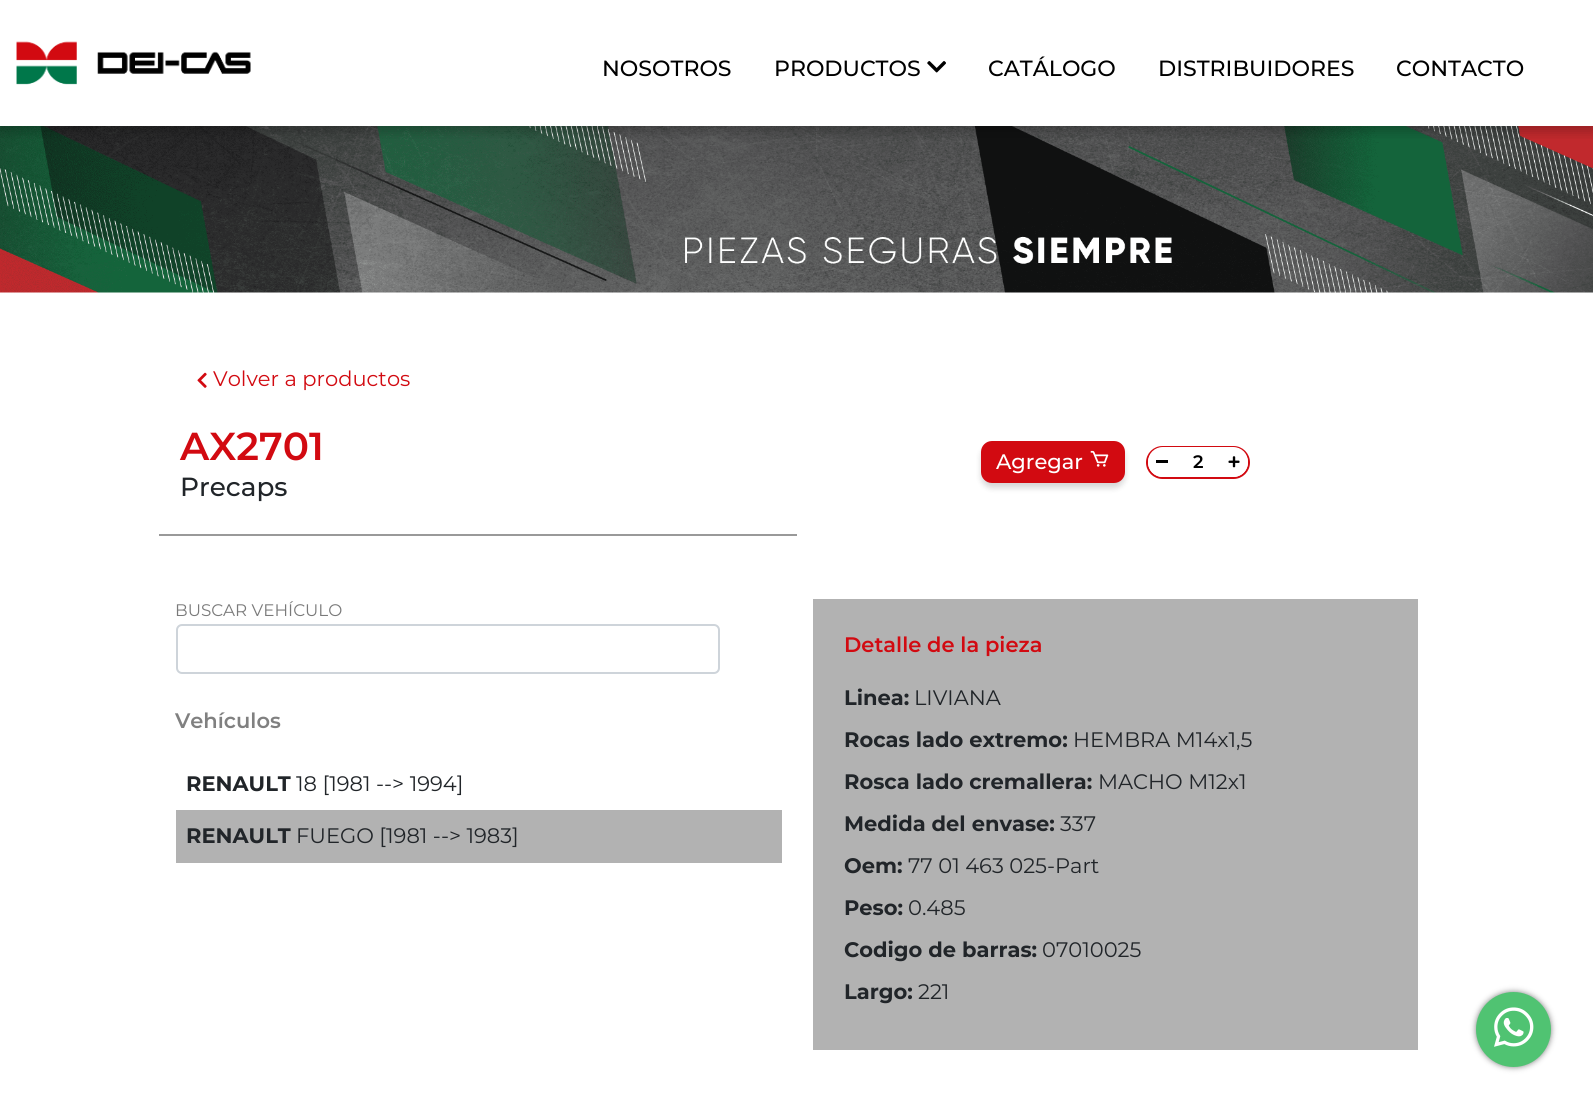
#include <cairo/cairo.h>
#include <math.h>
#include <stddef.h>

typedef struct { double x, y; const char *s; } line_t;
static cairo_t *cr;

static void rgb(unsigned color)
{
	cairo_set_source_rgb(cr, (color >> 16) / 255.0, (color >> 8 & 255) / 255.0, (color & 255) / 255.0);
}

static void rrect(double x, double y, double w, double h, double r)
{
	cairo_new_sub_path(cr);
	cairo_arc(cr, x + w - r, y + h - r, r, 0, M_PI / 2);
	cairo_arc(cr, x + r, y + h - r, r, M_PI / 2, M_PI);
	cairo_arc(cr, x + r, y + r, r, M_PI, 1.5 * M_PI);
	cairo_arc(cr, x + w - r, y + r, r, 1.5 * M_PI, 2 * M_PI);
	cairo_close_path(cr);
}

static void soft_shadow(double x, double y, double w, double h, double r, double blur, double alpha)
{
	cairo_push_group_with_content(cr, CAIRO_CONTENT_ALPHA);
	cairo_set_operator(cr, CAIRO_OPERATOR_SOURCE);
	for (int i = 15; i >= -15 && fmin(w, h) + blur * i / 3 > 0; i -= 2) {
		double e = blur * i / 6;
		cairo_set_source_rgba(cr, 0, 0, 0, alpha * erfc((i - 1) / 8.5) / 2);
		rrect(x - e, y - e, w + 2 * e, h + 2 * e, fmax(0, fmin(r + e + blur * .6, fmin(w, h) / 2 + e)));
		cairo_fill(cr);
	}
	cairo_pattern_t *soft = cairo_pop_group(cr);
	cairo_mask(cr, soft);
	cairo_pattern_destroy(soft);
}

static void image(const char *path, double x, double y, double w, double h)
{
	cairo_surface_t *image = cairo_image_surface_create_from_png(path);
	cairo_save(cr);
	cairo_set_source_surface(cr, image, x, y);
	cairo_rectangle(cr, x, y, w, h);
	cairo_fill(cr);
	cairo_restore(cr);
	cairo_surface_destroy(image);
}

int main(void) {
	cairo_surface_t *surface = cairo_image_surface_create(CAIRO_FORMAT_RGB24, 1593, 1108);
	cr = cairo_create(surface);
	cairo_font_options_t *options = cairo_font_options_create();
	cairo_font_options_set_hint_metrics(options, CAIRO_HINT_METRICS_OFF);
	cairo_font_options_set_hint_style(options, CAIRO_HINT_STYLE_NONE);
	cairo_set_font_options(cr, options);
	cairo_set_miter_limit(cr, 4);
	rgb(0xffffff);
	cairo_paint(cr);
	image("img/3.png", 0, 126, 1593, 167);
	cairo_save(cr);
	cairo_rectangle(cr, 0, 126, 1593, 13);
	cairo_clip(cr);
	rgb(0x000000);
	soft_shadow(0, 5, 1593, 126, 0, 6, 0.24);
	cairo_restore(cr);
	image("img/1.png", 16, 41, 235, 44);
	image("img/2.png", 927, 61, 19, 12);
	rgb(0x999999);
	cairo_rectangle(cr, 159, 534, 638, 2);
	cairo_fill(cr);
	image("img/4.png", 197, 372, 10, 16);
	rgb(0x000000);
	soft_shadow(981, 446, 144, 42, 11, 3, 0.16);
	rgb(0xd20a11);
	rrect(981, 441, 144, 42, 11);
	cairo_fill(cr);
	image("img/5.png", 1090, 450, 19, 17);
	rrect(1147, 447, 102, 31, 15.5);
	cairo_stroke(cr);
	rgb(0xffffff);
	cairo_new_path(cr);
	cairo_move_to(cr, 1163, 447);
	cairo_line_to(cr, 1178, 447);
	cairo_line_to(cr, 1178, 477);
	cairo_line_to(cr, 1163, 477);
	cairo_curve_to(cr, 1154.5, 477, 1148, 470.5, 1148, 462);
	cairo_curve_to(cr, 1148, 453.5, 1154.5, 447, 1163, 447);
	cairo_close_path(cr);
	cairo_fill(cr);
	rgb(0x000000);
	cairo_rectangle(cr, 1156, 460, 12, 3);
	cairo_fill(cr);
	rgb(0xffffff);
	cairo_rectangle(cr, 1178, 447, 42, 1);
	cairo_fill(cr);
	cairo_new_path(cr);
	cairo_move_to(cr, 1220, 447);
	cairo_line_to(cr, 1233, 447);
	cairo_curve_to(cr, 1241.5, 447, 1248, 453.5, 1248, 462);
	cairo_curve_to(cr, 1248, 470.5, 1241.5, 477, 1233, 477);
	cairo_line_to(cr, 1220, 477);
	cairo_close_path(cr);
	cairo_fill(cr);
	image("img/6.png", 1228, 456, 12, 12);
	rrect(177, 625, 542, 48, 5);
	rgb(0xced4da);
	cairo_stroke(cr);
	rgb(0xb2b2b2);
	cairo_rectangle(cr, 176, 810, 606, 53);
	cairo_fill(cr);
	cairo_rectangle(cr, 813, 599, 605, 451);
	cairo_fill(cr);
	rgb(0x7f7f7f);
	soft_shadow(1476, 992, 75, 75, 37.5, 3, 1);
	rgb(0x50c372);
	cairo_arc(cr, 1513.5, 1029.5, 37.5, 0, 2 * M_PI);
	cairo_fill(cr);
	image("img/7.png", 1494, 1007, 40, 40);
	cairo_select_font_face(cr, "Montserrat Medium", CAIRO_FONT_SLANT_NORMAL, CAIRO_FONT_WEIGHT_NORMAL);
	cairo_set_font_size(cr, 22);
	rgb(0x000000);
	{
		static const line_t items[] = {
			{602, 76, "NOSOTROS"},
			{774, 76, "PRODUCTOS"},
			{988, 76, "CATÁLOGO"},
			{1158, 76, "DISTRIBUIDORES"},
			{1396, 76, "CONTACTO"},
		};
		for (size_t i = 0; i < sizeof items / sizeof *items; i++) {
			cairo_move_to(cr, items[i].x, items[i].y);
			cairo_show_text(cr, items[i].s);
		}
	}
	cairo_select_font_face(cr, "Montserrat", CAIRO_FONT_SLANT_NORMAL, CAIRO_FONT_WEIGHT_NORMAL);
	cairo_set_font_size(cr, 21);
	rgb(0xd20a11);
	cairo_move_to(cr, 213, 386);
	cairo_show_text(cr, "Volver a productos");
	cairo_select_font_face(cr, "Montserrat SemiBold", CAIRO_FONT_SLANT_NORMAL, CAIRO_FONT_WEIGHT_NORMAL);
	cairo_set_font_size(cr, 39);
	cairo_move_to(cr, 180, 460);
	cairo_show_text(cr, "AX2701");
	cairo_select_font_face(cr, "Montserrat Medium", CAIRO_FONT_SLANT_NORMAL, CAIRO_FONT_WEIGHT_NORMAL);
	cairo_set_font_size(cr, 26.25);
	rgb(0x212529);
	cairo_move_to(cr, 180, 496);
	cairo_show_text(cr, "Precaps");
	cairo_set_font_size(cr, 21);
	rgb(0xffffff);
	cairo_move_to(cr, 996, 469);
	cairo_show_text(cr, "Agregar");
	cairo_select_font_face(cr, "Montserrat SemiBold", CAIRO_FONT_SLANT_NORMAL, CAIRO_FONT_WEIGHT_NORMAL);
	cairo_set_font_size(cr, 18);
	rgb(0x000000);
	cairo_move_to(cr, 1193, 468);
	cairo_show_text(cr, "2");
	cairo_select_font_face(cr, "Montserrat", CAIRO_FONT_SLANT_NORMAL, CAIRO_FONT_WEIGHT_NORMAL);
	cairo_set_font_size(cr, 16.75);
	rgb(0x7a7a7a);
	cairo_move_to(cr, 175, 616);
	cairo_show_text(cr, "BUSCAR VEHÍCULO");
	cairo_select_font_face(cr, "Montserrat SemiBold", CAIRO_FONT_SLANT_NORMAL, CAIRO_FONT_WEIGHT_NORMAL);
	cairo_set_font_size(cr, 21);
	rgb(0x808080);
	cairo_move_to(cr, 175, 728);
	cairo_show_text(cr, "Vehículos");
	cairo_select_font_face(cr, "Montserrat", CAIRO_FONT_SLANT_NORMAL, CAIRO_FONT_WEIGHT_BOLD);
	rgb(0x212529);
	cairo_move_to(cr, 186, 791);
	cairo_show_text(cr, "RENAULT");
	cairo_select_font_face(cr, "Montserrat", CAIRO_FONT_SLANT_NORMAL, CAIRO_FONT_WEIGHT_NORMAL);
	cairo_move_to(cr, 296, 791);
	cairo_show_text(cr, "18 [1981 --> 1994]");
	cairo_select_font_face(cr, "Montserrat", CAIRO_FONT_SLANT_NORMAL, CAIRO_FONT_WEIGHT_BOLD);
	cairo_move_to(cr, 186, 843);
	cairo_show_text(cr, "RENAULT");
	cairo_select_font_face(cr, "Montserrat", CAIRO_FONT_SLANT_NORMAL, CAIRO_FONT_WEIGHT_NORMAL);
	cairo_move_to(cr, 296, 843);
	cairo_show_text(cr, "FUEGO [1981 --> 1983]");
	cairo_select_font_face(cr, "Montserrat SemiBold", CAIRO_FONT_SLANT_NORMAL, CAIRO_FONT_WEIGHT_NORMAL);
	rgb(0xd20a11);
	cairo_move_to(cr, 844, 652);
	cairo_show_text(cr, "Detalle de la pieza");
	cairo_select_font_face(cr, "Montserrat", CAIRO_FONT_SLANT_NORMAL, CAIRO_FONT_WEIGHT_BOLD);
	rgb(0x212529);
	cairo_move_to(cr, 844, 705);
	cairo_show_text(cr, "Linea:");
	cairo_select_font_face(cr, "Montserrat", CAIRO_FONT_SLANT_NORMAL, CAIRO_FONT_WEIGHT_NORMAL);
	cairo_move_to(cr, 914, 705);
	cairo_show_text(cr, "LIVIANA");
	cairo_select_font_face(cr, "Montserrat", CAIRO_FONT_SLANT_NORMAL, CAIRO_FONT_WEIGHT_BOLD);
	cairo_move_to(cr, 844, 747);
	cairo_show_text(cr, "Rocas lado extremo:");
	cairo_select_font_face(cr, "Montserrat", CAIRO_FONT_SLANT_NORMAL, CAIRO_FONT_WEIGHT_NORMAL);
	cairo_move_to(cr, 1073, 747);
	cairo_show_text(cr, "HEMBRA M14x1,5");
	cairo_select_font_face(cr, "Montserrat", CAIRO_FONT_SLANT_NORMAL, CAIRO_FONT_WEIGHT_BOLD);
	cairo_move_to(cr, 844, 789);
	cairo_show_text(cr, "Rosca lado cremallera:");
	cairo_select_font_face(cr, "Montserrat", CAIRO_FONT_SLANT_NORMAL, CAIRO_FONT_WEIGHT_NORMAL);
	cairo_move_to(cr, 1098, 789);
	cairo_show_text(cr, "MACHO M12x1");
	cairo_select_font_face(cr, "Montserrat", CAIRO_FONT_SLANT_NORMAL, CAIRO_FONT_WEIGHT_BOLD);
	cairo_move_to(cr, 844, 831);
	cairo_show_text(cr, "Medida del envase:");
	cairo_select_font_face(cr, "Montserrat", CAIRO_FONT_SLANT_NORMAL, CAIRO_FONT_WEIGHT_NORMAL);
	cairo_move_to(cr, 1060, 831);
	cairo_show_text(cr, "337");
	cairo_select_font_face(cr, "Montserrat", CAIRO_FONT_SLANT_NORMAL, CAIRO_FONT_WEIGHT_BOLD);
	cairo_move_to(cr, 844, 873);
	cairo_show_text(cr, "Oem:");
	cairo_select_font_face(cr, "Montserrat", CAIRO_FONT_SLANT_NORMAL, CAIRO_FONT_WEIGHT_NORMAL);
	cairo_move_to(cr, 908, 873);
	cairo_show_text(cr, "77 01 463 025-Part");
	cairo_select_font_face(cr, "Montserrat", CAIRO_FONT_SLANT_NORMAL, CAIRO_FONT_WEIGHT_BOLD);
	cairo_move_to(cr, 844, 915);
	cairo_show_text(cr, "Peso:");
	cairo_select_font_face(cr, "Montserrat", CAIRO_FONT_SLANT_NORMAL, CAIRO_FONT_WEIGHT_NORMAL);
	cairo_move_to(cr, 908, 915);
	cairo_show_text(cr, "0.485");
	cairo_select_font_face(cr, "Montserrat", CAIRO_FONT_SLANT_NORMAL, CAIRO_FONT_WEIGHT_BOLD);
	cairo_move_to(cr, 844, 957);
	cairo_show_text(cr, "Codigo de barras:");
	cairo_select_font_face(cr, "Montserrat", CAIRO_FONT_SLANT_NORMAL, CAIRO_FONT_WEIGHT_NORMAL);
	cairo_move_to(cr, 1042, 957);
	cairo_show_text(cr, "07010025");
	cairo_select_font_face(cr, "Montserrat", CAIRO_FONT_SLANT_NORMAL, CAIRO_FONT_WEIGHT_BOLD);
	cairo_move_to(cr, 844, 999);
	cairo_show_text(cr, "Largo:");
	cairo_select_font_face(cr, "Montserrat", CAIRO_FONT_SLANT_NORMAL, CAIRO_FONT_WEIGHT_NORMAL);
	cairo_move_to(cr, 918, 999);
	cairo_show_text(cr, "221");
	cairo_surface_write_to_png(surface, "page.png");
	cairo_font_options_destroy(options);
	cairo_destroy(cr);
	cairo_surface_destroy(surface);
	return 0;
}
